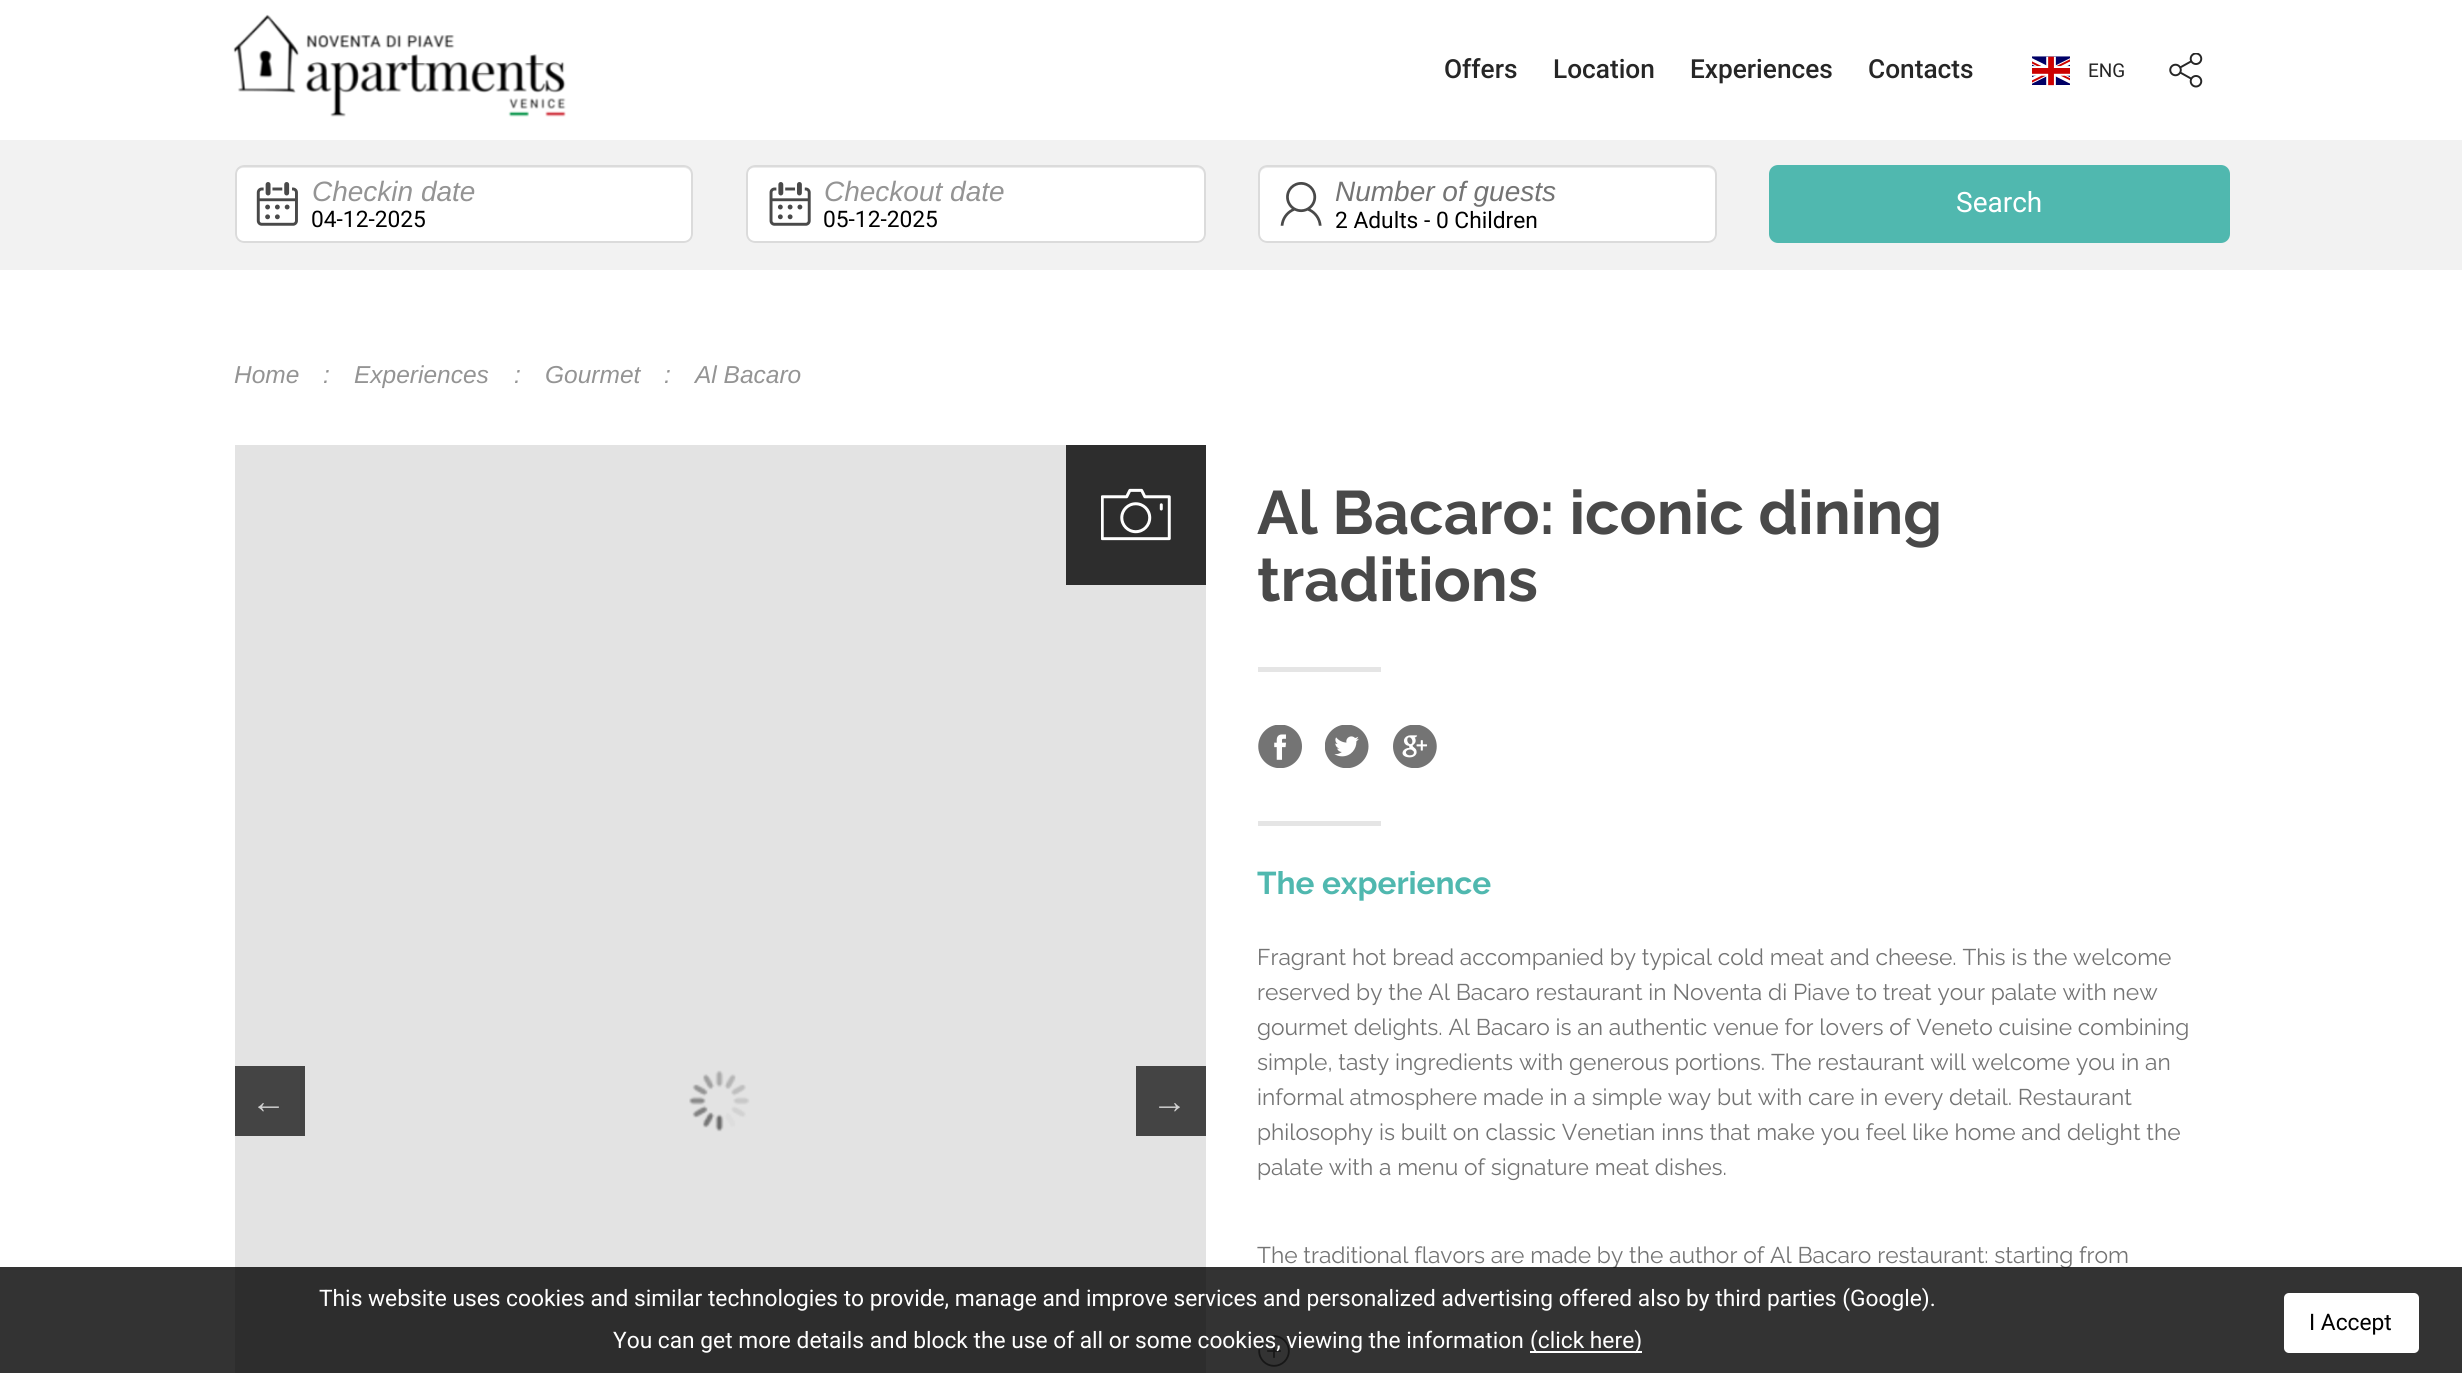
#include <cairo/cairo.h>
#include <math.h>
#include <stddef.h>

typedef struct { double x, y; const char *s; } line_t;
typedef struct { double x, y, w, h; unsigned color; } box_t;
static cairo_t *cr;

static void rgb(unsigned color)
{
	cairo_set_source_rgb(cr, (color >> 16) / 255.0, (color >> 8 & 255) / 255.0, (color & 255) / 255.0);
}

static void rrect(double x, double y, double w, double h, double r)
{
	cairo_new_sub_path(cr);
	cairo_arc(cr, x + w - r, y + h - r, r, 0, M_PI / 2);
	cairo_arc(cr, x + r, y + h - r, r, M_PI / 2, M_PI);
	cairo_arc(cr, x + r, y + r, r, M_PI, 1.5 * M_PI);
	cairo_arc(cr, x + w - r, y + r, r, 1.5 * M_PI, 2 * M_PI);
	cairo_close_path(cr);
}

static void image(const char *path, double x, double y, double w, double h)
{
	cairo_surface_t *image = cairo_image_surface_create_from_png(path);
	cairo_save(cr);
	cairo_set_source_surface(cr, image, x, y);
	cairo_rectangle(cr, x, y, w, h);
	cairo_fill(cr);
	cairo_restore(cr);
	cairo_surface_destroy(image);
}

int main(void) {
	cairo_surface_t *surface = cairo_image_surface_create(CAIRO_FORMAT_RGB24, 2462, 1373);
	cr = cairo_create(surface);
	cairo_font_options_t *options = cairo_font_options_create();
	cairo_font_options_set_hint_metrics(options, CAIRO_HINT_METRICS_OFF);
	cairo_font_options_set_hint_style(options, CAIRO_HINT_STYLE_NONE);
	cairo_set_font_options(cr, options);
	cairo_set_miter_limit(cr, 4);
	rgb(0xffffff);
	cairo_paint(cr);
	image("img/1.png", 233, 14, 333, 103);
	image("img/2.png", 2032, 56, 38, 30);
	image("img/3.png", 2169, 53, 34, 35);
	rgb(0xf2f2f2);
	cairo_rectangle(cr, 0, 140, 2462, 130);
	cairo_fill(cr);
	rgb(0xffffff);
	rrect(235, 165, 458, 78, 9);
	cairo_fill(cr);
	image("img/4.png", 256, 182, 42, 44);
	rgb(0xececec);
	cairo_new_path(cr);
	cairo_move_to(cr, 243, 168);
	cairo_line_to(cr, 684, 168);
	cairo_curve_to(cr, 688, 168, 691, 171, 691, 175);
	cairo_line_to(cr, 691, 173);
	cairo_curve_to(cr, 691, 169, 688, 166, 684, 166);
	cairo_line_to(cr, 243, 166);
	cairo_curve_to(cr, 239, 166, 236, 169, 236, 173);
	cairo_line_to(cr, 236, 175);
	cairo_curve_to(cr, 236, 171, 239, 168, 243, 168);
	cairo_close_path(cr);
	cairo_fill(cr);
	rrect(236, 166, 456, 76, 8);
	rgb(0xdbdbdb);
	cairo_stroke(cr);
	rgb(0xffffff);
	rrect(746, 165, 460, 78, 9);
	cairo_fill(cr);
	image("img/5.png", 769, 182, 42, 44);
	rgb(0xececec);
	cairo_new_path(cr);
	cairo_move_to(cr, 754, 168);
	cairo_line_to(cr, 1197, 168);
	cairo_curve_to(cr, 1201, 168, 1204, 171, 1204, 175);
	cairo_line_to(cr, 1204, 173);
	cairo_curve_to(cr, 1204, 169, 1201, 166, 1197, 166);
	cairo_line_to(cr, 754, 166);
	cairo_curve_to(cr, 750, 166, 747, 169, 747, 173);
	cairo_line_to(cr, 747, 175);
	cairo_curve_to(cr, 747, 171, 750, 168, 754, 168);
	cairo_close_path(cr);
	cairo_fill(cr);
	rrect(747, 166, 458, 76, 8);
	rgb(0xdbdbdb);
	cairo_stroke(cr);
	rgb(0xffffff);
	rrect(1258, 165, 459, 78, 9);
	cairo_fill(cr);
	image("img/6.png", 1280, 182, 42, 44);
	rgb(0xececec);
	cairo_new_path(cr);
	cairo_move_to(cr, 1267, 168);
	cairo_line_to(cr, 1708, 168);
	cairo_curve_to(cr, 1712, 168, 1715, 171, 1715, 175);
	cairo_line_to(cr, 1715, 173);
	cairo_curve_to(cr, 1715, 169, 1712, 166, 1708, 166);
	cairo_line_to(cr, 1267, 166);
	cairo_curve_to(cr, 1263, 166, 1260, 169, 1260, 173);
	cairo_line_to(cr, 1260, 175);
	cairo_curve_to(cr, 1260, 171, 1263, 168, 1267, 168);
	cairo_close_path(cr);
	cairo_fill(cr);
	rrect(1259, 166, 457, 76, 8);
	rgb(0xdbdbdb);
	cairo_stroke(cr);
	rgb(0x50b8af);
	rrect(1770, 166, 459, 76, 8);
	cairo_fill_preserve(cr);
	cairo_stroke(cr);
	rgb(0xe3e3e3);
	cairo_rectangle(cr, 235, 445, 971, 928);
	cairo_fill(cr);
	rgb(0x2d2d2d);
	cairo_rectangle(cr, 1066, 445, 140, 140);
	cairo_fill(cr);
	image("img/7.png", 1101, 488, 70, 53);
	image("img/8.png", 689, 1070, 61, 62);
	{
		static const box_t items[] = {
			{235, 1066, 70, 70, 0x444444},
			{1136, 1066, 70, 70, 0x444444},
			{1258, 667, 123, 5, 0xe5e5e5},
		};
		for (size_t i = 0; i < sizeof items / sizeof *items; i++) {
			rgb(items[i].color);
			cairo_rectangle(cr, items[i].x, items[i].y, items[i].w, items[i].h);
			cairo_fill(cr);
		}
	}
	image("img/9.png", 1258, 725, 44, 43);
	image("img/10.png", 1325, 725, 44, 43);
	image("img/11.png", 1393, 725, 44, 43);
	cairo_rectangle(cr, 1258, 821, 123, 5);
	cairo_fill(cr);
	image("img/12.png", 1258, 1335, 32, 32);
	cairo_select_font_face(cr, "Roboto Medium", CAIRO_FONT_SLANT_NORMAL, CAIRO_FONT_WEIGHT_NORMAL);
	cairo_set_font_size(cr, 26.25);
	rgb(0x262626);
	{
		static const line_t items[] = {
			{1444, 78, "Offers"},
			{1553, 78, "Location"},
			{1690, 78, "Experiences"},
			{1868, 78, "Contacts"},
		};
		for (size_t i = 0; i < sizeof items / sizeof *items; i++) {
			cairo_move_to(cr, items[i].x, items[i].y);
			cairo_show_text(cr, items[i].s);
		}
	}
	cairo_select_font_face(cr, "Roboto", CAIRO_FONT_SLANT_NORMAL, CAIRO_FONT_WEIGHT_NORMAL);
	cairo_set_font_size(cr, 19);
	cairo_move_to(cr, 2088, 77);
	cairo_show_text(cr, "ENG");
	cairo_select_font_face(cr, "Liberation Sans", CAIRO_FONT_SLANT_ITALIC, CAIRO_FONT_WEIGHT_NORMAL);
	cairo_set_font_size(cr, 28);
	rgb(0x949494);
	cairo_move_to(cr, 312, 201);
	cairo_show_text(cr, "Checkin date");
	cairo_select_font_face(cr, "Roboto", CAIRO_FONT_SLANT_NORMAL, CAIRO_FONT_WEIGHT_NORMAL);
	cairo_set_font_size(cr, 22.75);
	rgb(0x000000);
	cairo_move_to(cr, 311, 227);
	cairo_show_text(cr, "04-12-2025");
	cairo_select_font_face(cr, "Liberation Sans", CAIRO_FONT_SLANT_ITALIC, CAIRO_FONT_WEIGHT_NORMAL);
	cairo_set_font_size(cr, 28);
	rgb(0x949494);
	cairo_move_to(cr, 824, 201);
	cairo_show_text(cr, "Checkout date");
	cairo_select_font_face(cr, "Roboto", CAIRO_FONT_SLANT_NORMAL, CAIRO_FONT_WEIGHT_NORMAL);
	cairo_set_font_size(cr, 22.75);
	rgb(0x000000);
	cairo_move_to(cr, 823, 227);
	cairo_show_text(cr, "05-12-2025");
	cairo_select_font_face(cr, "Liberation Sans", CAIRO_FONT_SLANT_ITALIC, CAIRO_FONT_WEIGHT_NORMAL);
	cairo_set_font_size(cr, 28);
	rgb(0x747474);
	cairo_move_to(cr, 1335, 201);
	cairo_show_text(cr, "Number of guests");
	cairo_select_font_face(cr, "Roboto", CAIRO_FONT_SLANT_NORMAL, CAIRO_FONT_WEIGHT_NORMAL);
	cairo_set_font_size(cr, 22.75);
	rgb(0x000000);
	cairo_move_to(cr, 1335, 228);
	cairo_show_text(cr, "2 Adults - 0 Children");
	cairo_set_font_size(cr, 28);
	rgb(0xffffff);
	cairo_move_to(cr, 1956, 212);
	cairo_show_text(cr, "Search");
	cairo_select_font_face(cr, "Liberation Sans", CAIRO_FONT_SLANT_ITALIC, CAIRO_FONT_WEIGHT_NORMAL);
	cairo_set_font_size(cr, 24.5);
	rgb(0x949494);
	{
		static const line_t items[] = {
			{234, 383, "Home"},
			{323, 383, ":"},
			{354, 383, "Experiences"},
			{514, 383, ":"},
			{545, 383, "Gourmet"},
			{664, 383, ":"},
			{695, 383, "Al Bacaro"},
		};
		for (size_t i = 0; i < sizeof items / sizeof *items; i++) {
			cairo_move_to(cr, items[i].x, items[i].y);
			cairo_show_text(cr, items[i].s);
		}
	}
	cairo_select_font_face(cr, "Liberation Sans", CAIRO_FONT_SLANT_NORMAL, CAIRO_FONT_WEIGHT_NORMAL);
	cairo_set_font_size(cr, 35);
	rgb(0xd0d0d0);
	cairo_move_to(cr, 251, 1113);
	cairo_show_text(cr, "←");
	cairo_move_to(cr, 1152, 1113);
	cairo_show_text(cr, "→");
	cairo_select_font_face(cr, "Raleway", CAIRO_FONT_SLANT_NORMAL, CAIRO_FONT_WEIGHT_BOLD);
	cairo_set_font_size(cr, 61.25);
	rgb(0x494949);
	cairo_move_to(cr, 1257, 534);
	cairo_show_text(cr, "Al Bacaro: iconic dining");
	cairo_move_to(cr, 1257, 601);
	cairo_show_text(cr, "traditions");
	cairo_set_font_size(cr, 31.5);
	rgb(0x50b8af);
	cairo_move_to(cr, 1257, 894);
	cairo_show_text(cr, "The experience");
	cairo_select_font_face(cr, "Raleway", CAIRO_FONT_SLANT_NORMAL, CAIRO_FONT_WEIGHT_NORMAL);
	cairo_set_font_size(cr, 22.75);
	rgb(0x747474);
	{
		static const line_t items[] = {
			{1257, 965, "Fragrant hot bread accompanied by typical cold meat and cheese. This is the welcome"},
			{1257, 1000, "reserved by the Al Bacaro restaurant in Noventa di Piave to treat your palate with new"},
			{1257, 1035, "gourmet delights. Al Bacaro is an authentic venue for lovers of Veneto cuisine combining"},
			{1257, 1070, "simple, tasty ingredients with generous portions. The restaurant will welcome you in an"},
			{1257, 1105, "informal atmosphere made in a simple way but with care in every detail. Restaurant"},
			{1257, 1140, "philosophy is built on classic Venetian inns that make you feel like home and delight the"},
			{1257, 1175, "palate with a menu of signature meat dishes."},
			{1257, 1263, "The traditional flavors are made by the author of Al Bacaro restaurant: starting from"},
		};
		for (size_t i = 0; i < sizeof items / sizeof *items; i++) {
			cairo_move_to(cr, items[i].x, items[i].y);
			cairo_show_text(cr, items[i].s);
		}
	}
	cairo_set_source_rgba(cr, 0, 0, 0, 0.8);
	cairo_rectangle(cr, 0, 1267, 2462, 106);
	cairo_fill(cr);
	cairo_select_font_face(cr, "Roboto", CAIRO_FONT_SLANT_NORMAL, CAIRO_FONT_WEIGHT_NORMAL);
	rgb(0xffffff);
	cairo_move_to(cr, 319, 1306);
	cairo_show_text(cr, "This website uses cookies and similar technologies to provide, manage and improve services and personalized advertising offered also by third parties (Google).");
	rrect(2284, 1293, 135, 60, 5);
	cairo_fill(cr);
	rgb(0x000000);
	cairo_move_to(cr, 2309, 1330);
	cairo_show_text(cr, "I Accept");
	rgb(0xffffff);
	cairo_move_to(cr, 613, 1348);
	cairo_show_text(cr, "You can get more details and block the use of all or some cookies, viewing the information");
	cairo_rectangle(cr, 1530, 1351, 112, 2);
	cairo_fill(cr);
	cairo_move_to(cr, 1530, 1348);
	cairo_show_text(cr, "(click here)");
	cairo_surface_write_to_png(surface, "page.png");
	cairo_font_options_destroy(options);
	cairo_destroy(cr);
	cairo_surface_destroy(surface);
	return 0;
}
